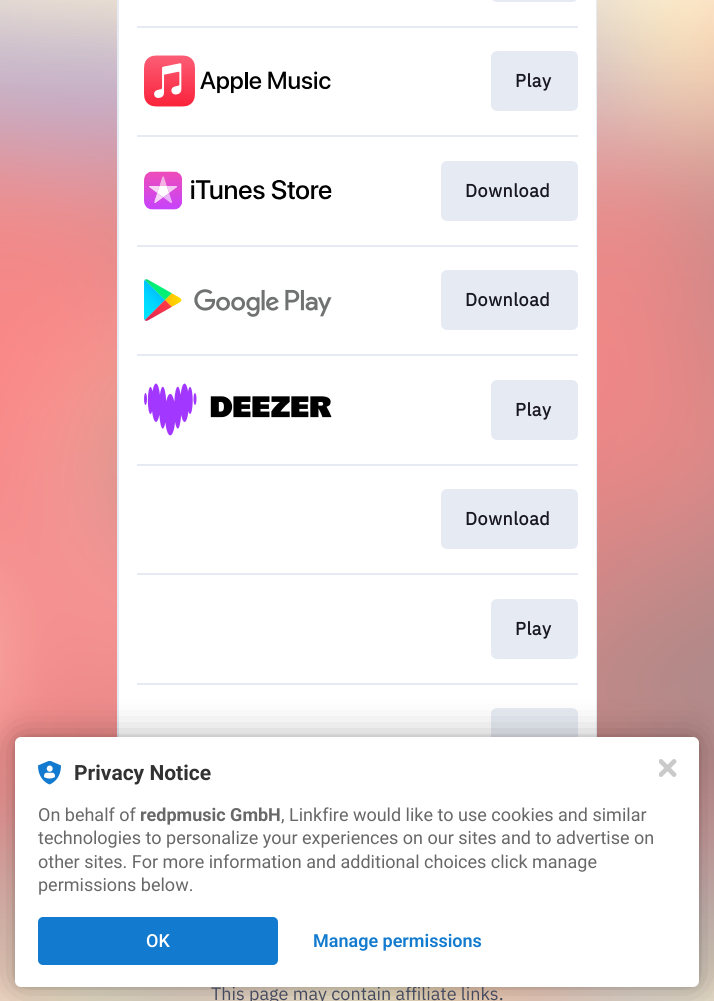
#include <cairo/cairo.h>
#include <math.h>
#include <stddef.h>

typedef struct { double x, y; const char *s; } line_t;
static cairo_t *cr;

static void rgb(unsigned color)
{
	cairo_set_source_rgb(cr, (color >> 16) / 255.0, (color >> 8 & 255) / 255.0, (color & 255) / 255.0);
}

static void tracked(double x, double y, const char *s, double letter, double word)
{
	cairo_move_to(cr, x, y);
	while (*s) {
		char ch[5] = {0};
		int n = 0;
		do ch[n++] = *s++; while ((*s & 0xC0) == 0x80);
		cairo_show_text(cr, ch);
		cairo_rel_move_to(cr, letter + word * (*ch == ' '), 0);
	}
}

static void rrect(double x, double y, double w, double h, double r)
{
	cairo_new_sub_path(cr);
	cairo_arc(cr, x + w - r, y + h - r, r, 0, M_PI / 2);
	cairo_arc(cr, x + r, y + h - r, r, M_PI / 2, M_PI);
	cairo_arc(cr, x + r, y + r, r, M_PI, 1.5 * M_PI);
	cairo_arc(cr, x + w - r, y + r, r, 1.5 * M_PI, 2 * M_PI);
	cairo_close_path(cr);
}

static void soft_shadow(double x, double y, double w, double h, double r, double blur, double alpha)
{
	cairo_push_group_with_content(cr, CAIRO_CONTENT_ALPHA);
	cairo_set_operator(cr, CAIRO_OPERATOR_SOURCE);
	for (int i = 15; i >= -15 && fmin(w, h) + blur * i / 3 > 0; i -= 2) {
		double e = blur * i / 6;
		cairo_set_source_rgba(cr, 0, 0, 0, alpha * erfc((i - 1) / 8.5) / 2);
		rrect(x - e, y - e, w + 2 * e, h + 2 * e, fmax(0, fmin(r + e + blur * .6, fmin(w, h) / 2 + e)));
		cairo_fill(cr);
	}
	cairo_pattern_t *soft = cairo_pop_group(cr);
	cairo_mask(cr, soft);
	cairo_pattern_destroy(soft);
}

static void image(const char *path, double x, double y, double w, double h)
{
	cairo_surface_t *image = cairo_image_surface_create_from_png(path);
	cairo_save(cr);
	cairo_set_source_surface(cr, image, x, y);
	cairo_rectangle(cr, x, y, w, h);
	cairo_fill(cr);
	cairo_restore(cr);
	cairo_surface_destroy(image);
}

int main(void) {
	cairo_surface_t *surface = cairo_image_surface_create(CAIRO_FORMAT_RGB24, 714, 1001);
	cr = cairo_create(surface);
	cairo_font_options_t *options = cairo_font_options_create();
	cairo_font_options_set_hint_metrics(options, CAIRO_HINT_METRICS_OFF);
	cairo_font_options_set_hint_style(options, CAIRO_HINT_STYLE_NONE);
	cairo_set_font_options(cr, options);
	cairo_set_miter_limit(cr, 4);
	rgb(0xffffff);
	cairo_paint(cr);
	image("img/1.png", 0, 0, 714, 1001);
	cairo_rectangle(cr, 118, -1, 478, 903);
	rgb(0xe6eaf2);
	cairo_stroke(cr);
	rgb(0xffffff);
	cairo_rectangle(cr, 119, 0, 477, 737);
	cairo_fill(cr);
	rgb(0xe6eaf2);
	rrect(491, -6, 87, 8, 6);
	cairo_fill(cr);
	cairo_rectangle(cr, 137, 26, 441, 2);
	cairo_fill(cr);
	image("img/2.png", 144, 55, 187, 52);
	rrect(491, 51, 87, 60, 6);
	cairo_fill(cr);
	cairo_rectangle(cr, 137, 135, 441, 2);
	cairo_fill(cr);
	image("img/3.png", 144, 171, 188, 39);
	rrect(441, 161, 137, 60, 6);
	cairo_fill(cr);
	cairo_rectangle(cr, 137, 245, 441, 2);
	cairo_fill(cr);
	image("img/4.png", 144, 279, 188, 42);
	rrect(441, 270, 137, 60, 6);
	cairo_fill(cr);
	cairo_rectangle(cr, 137, 354, 441, 2);
	cairo_fill(cr);
	image("img/5.png", 144, 383, 188, 53);
	rrect(491, 380, 87, 60, 6);
	cairo_fill(cr);
	cairo_rectangle(cr, 137, 464, 441, 2);
	cairo_fill(cr);
	rrect(441, 489, 137, 60, 6);
	cairo_fill(cr);
	cairo_rectangle(cr, 137, 573, 441, 2);
	cairo_fill(cr);
	rrect(491, 599, 87, 60, 6);
	cairo_fill(cr);
	cairo_rectangle(cr, 137, 683, 441, 2);
	cairo_fill(cr);
	rrect(491, 708, 87, 60, 6);
	cairo_fill(cr);
	rgb(0x000000);
	soft_shadow(15, 737, 684, 250, 6, 3, 0.12);
	soft_shadow(15, 737, 684, 250, 6, 18, 0.3);
	cairo_select_font_face(cr, "IBM Plex Sans", CAIRO_FONT_SLANT_NORMAL, CAIRO_FONT_WEIGHT_BOLD);
	cairo_set_font_size(cr, 18);
	rgb(0x181721);
	{
		static const line_t items[] = {
			{515, 87, "Play"},
			{465, 197, "Download"},
			{465, 306, "Download"},
			{515, 416, "Play"},
			{465, 525, "Download"},
			{515, 635, "Play"},
		};
		for (size_t i = 0; i < sizeof items / sizeof *items; i++) {
			tracked(items[i].x, items[i].y, items[i].s, 0.5, 0);
		}
	}
	cairo_select_font_face(cr, "IBM Plex Sans", CAIRO_FONT_SLANT_NORMAL, CAIRO_FONT_WEIGHT_NORMAL);
	rgb(0x454b5f);
	cairo_move_to(cr, 211, 1000);
	cairo_show_text(cr, "This page may contain affiliate links.");
	rgb(0xffffff);
	rrect(15, 737, 684, 250, 6);
	cairo_fill(cr);
	image("img/6.png", 38, 761, 23, 24);
	cairo_select_font_face(cr, "Roboto", CAIRO_FONT_SLANT_NORMAL, CAIRO_FONT_WEIGHT_BOLD);
	cairo_set_font_size(cr, 21);
	rgb(0x323232);
	cairo_move_to(cr, 74, 780);
	cairo_show_text(cr, "Privacy Notice");
	cairo_select_font_face(cr, "Roboto", CAIRO_FONT_SLANT_NORMAL, CAIRO_FONT_WEIGHT_NORMAL);
	cairo_set_font_size(cr, 18);
	rgb(0x686868);
	cairo_move_to(cr, 38, 821);
	cairo_show_text(cr, "On behalf of");
	cairo_select_font_face(cr, "Roboto", CAIRO_FONT_SLANT_NORMAL, CAIRO_FONT_WEIGHT_BOLD);
	cairo_move_to(cr, 140, 821);
	cairo_show_text(cr, "redpmusic GmbH");
	cairo_select_font_face(cr, "Roboto", CAIRO_FONT_SLANT_NORMAL, CAIRO_FONT_WEIGHT_NORMAL);
	{
		static const line_t items[] = {
			{281, 821, ", Linkfire would like to use cookies and similar"},
			{38, 844, "technologies to personalize your experiences on our sites and to advertise on"},
			{38, 868, "other sites. For more information and additional choices click manage"},
			{38, 891, "permissions below."},
		};
		for (size_t i = 0; i < sizeof items / sizeof *items; i++) {
			cairo_move_to(cr, items[i].x, items[i].y);
			cairo_show_text(cr, items[i].s);
		}
	}
	rgb(0x137bcf);
	rrect(38, 917, 240, 48, 5);
	cairo_fill(cr);
	cairo_select_font_face(cr, "Roboto Medium", CAIRO_FONT_SLANT_NORMAL, CAIRO_FONT_WEIGHT_NORMAL);
	rgb(0xffffff);
	cairo_move_to(cr, 146, 947);
	cairo_show_text(cr, "OK");
	cairo_select_font_face(cr, "Roboto SemiBold", CAIRO_FONT_SLANT_NORMAL, CAIRO_FONT_WEIGHT_NORMAL);
	rgb(0x137bcf);
	cairo_move_to(cr, 313, 947);
	cairo_show_text(cr, "Manage permissions");
	image("img/7.png", 659, 759, 18, 18);
	cairo_surface_write_to_png(surface, "page.png");
	cairo_font_options_destroy(options);
	cairo_destroy(cr);
	cairo_surface_destroy(surface);
	return 0;
}
